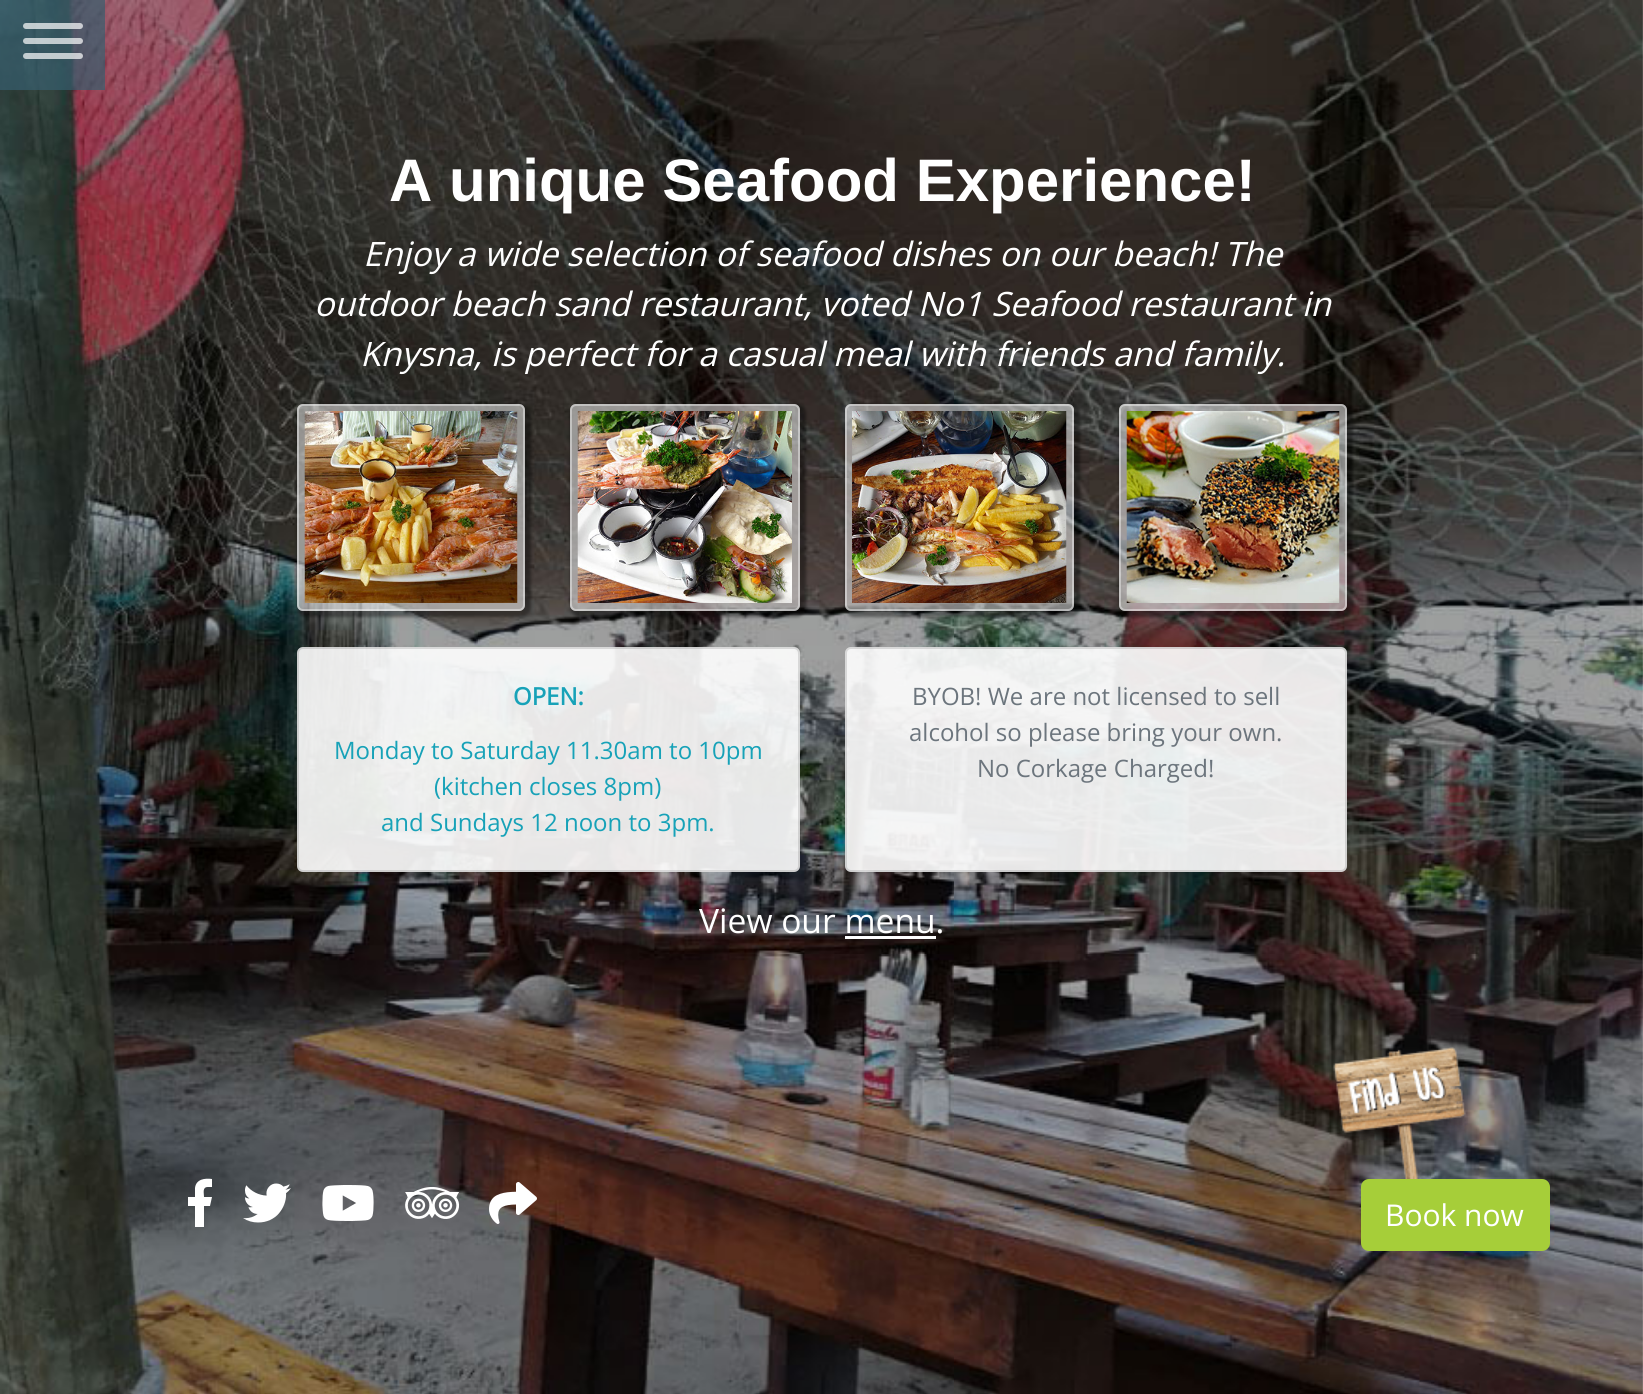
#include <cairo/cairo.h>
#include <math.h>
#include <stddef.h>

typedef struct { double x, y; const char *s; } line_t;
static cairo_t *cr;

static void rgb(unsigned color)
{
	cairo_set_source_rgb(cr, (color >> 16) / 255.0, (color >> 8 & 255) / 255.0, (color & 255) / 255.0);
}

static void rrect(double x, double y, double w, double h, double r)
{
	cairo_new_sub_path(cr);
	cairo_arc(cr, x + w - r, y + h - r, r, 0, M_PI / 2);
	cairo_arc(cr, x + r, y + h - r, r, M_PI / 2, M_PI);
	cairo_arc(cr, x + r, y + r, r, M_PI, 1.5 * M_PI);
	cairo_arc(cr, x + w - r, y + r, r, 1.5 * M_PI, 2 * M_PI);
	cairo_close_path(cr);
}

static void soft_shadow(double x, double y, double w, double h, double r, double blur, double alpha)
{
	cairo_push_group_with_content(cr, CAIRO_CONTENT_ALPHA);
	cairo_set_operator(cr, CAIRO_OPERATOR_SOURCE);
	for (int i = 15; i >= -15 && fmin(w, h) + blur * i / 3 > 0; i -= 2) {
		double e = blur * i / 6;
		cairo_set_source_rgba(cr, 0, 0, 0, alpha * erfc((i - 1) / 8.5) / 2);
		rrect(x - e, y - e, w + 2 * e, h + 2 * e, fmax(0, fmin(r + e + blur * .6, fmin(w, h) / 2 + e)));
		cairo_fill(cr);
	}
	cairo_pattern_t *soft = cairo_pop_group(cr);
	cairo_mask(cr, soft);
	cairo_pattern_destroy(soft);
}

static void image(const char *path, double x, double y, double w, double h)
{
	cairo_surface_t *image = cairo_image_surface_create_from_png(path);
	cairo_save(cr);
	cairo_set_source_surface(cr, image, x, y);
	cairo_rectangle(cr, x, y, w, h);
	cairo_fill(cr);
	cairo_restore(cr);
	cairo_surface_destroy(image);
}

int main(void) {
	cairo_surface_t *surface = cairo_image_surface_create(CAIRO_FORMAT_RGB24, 1643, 1394);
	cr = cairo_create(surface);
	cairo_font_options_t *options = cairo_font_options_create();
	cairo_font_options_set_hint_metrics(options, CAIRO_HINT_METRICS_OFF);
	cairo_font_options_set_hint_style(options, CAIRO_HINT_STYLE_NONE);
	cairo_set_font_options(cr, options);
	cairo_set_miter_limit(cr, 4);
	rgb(0xffffff);
	cairo_paint(cr);
	image("img/1.png", 0, 0, 1643, 1394);
	cairo_set_source_rgba(cr, 0.216, 0.373, 0.431, 0.7);
	cairo_rectangle(cr, 0, 0, 105, 90);
	cairo_fill(cr);
	cairo_set_source_rgba(cr, 1, 1, 1, 0.7);
	rrect(23, 38, 60, 6, 3);
	cairo_fill(cr);
	rrect(23, 23, 60, 6, 3);
	cairo_fill(cr);
	rrect(23, 53, 60, 6, 3);
	cairo_fill(cr);
	cairo_save(cr);
	cairo_set_fill_rule(cr, CAIRO_FILL_RULE_EVEN_ODD);
	cairo_new_path(cr);
	cairo_move_to(cr, 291, 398);
	cairo_line_to(cr, 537, 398);
	cairo_line_to(cr, 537, 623);
	cairo_line_to(cr, 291, 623);
	cairo_close_path(cr);
	cairo_move_to(cr, 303, 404);
	cairo_line_to(cr, 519, 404);
	cairo_curve_to(cr, 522.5, 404, 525, 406.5, 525, 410);
	cairo_line_to(cr, 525, 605);
	cairo_curve_to(cr, 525, 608.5, 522.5, 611, 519, 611);
	cairo_line_to(cr, 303, 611);
	cairo_curve_to(cr, 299.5, 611, 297, 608.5, 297, 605);
	cairo_line_to(cr, 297, 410);
	cairo_curve_to(cr, 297, 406.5, 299.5, 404, 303, 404);
	cairo_close_path(cr);
	cairo_clip(cr);
	rgb(0x000000);
	soft_shadow(297, 404, 234, 213, 9, 1.5, 0.4);
	cairo_restore(cr);
	cairo_set_source_rgba(cr, 1, 1, 1, 0.5);
	rrect(297, 404, 228, 207, 6);
	cairo_fill(cr);
	rrect(298, 405, 226, 205, 5);
	cairo_set_source_rgba(cr, 1, 1, 1, 0.4);
	cairo_stroke(cr);
	image("img/2.png", 304, 411, 214, 192);
	cairo_save(cr);
	cairo_set_fill_rule(cr, CAIRO_FILL_RULE_EVEN_ODD);
	cairo_new_path(cr);
	cairo_move_to(cr, 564, 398);
	cairo_line_to(cr, 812, 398);
	cairo_line_to(cr, 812, 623);
	cairo_line_to(cr, 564, 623);
	cairo_close_path(cr);
	cairo_move_to(cr, 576, 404);
	cairo_line_to(cr, 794, 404);
	cairo_curve_to(cr, 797.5, 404, 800, 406.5, 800, 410);
	cairo_line_to(cr, 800, 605);
	cairo_curve_to(cr, 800, 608.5, 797.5, 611, 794, 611);
	cairo_line_to(cr, 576, 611);
	cairo_curve_to(cr, 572.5, 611, 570, 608.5, 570, 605);
	cairo_line_to(cr, 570, 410);
	cairo_curve_to(cr, 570, 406.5, 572.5, 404, 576, 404);
	cairo_close_path(cr);
	cairo_clip(cr);
	rgb(0x000000);
	soft_shadow(570, 404, 236, 213, 9, 1.5, 0.4);
	cairo_restore(cr);
	cairo_set_source_rgba(cr, 1, 1, 1, 0.5);
	rrect(570, 404, 230, 207, 6);
	cairo_fill(cr);
	rrect(571, 405, 228, 205, 5);
	cairo_set_source_rgba(cr, 1, 1, 1, 0.4);
	cairo_stroke(cr);
	image("img/3.png", 577, 411, 215, 192);
	cairo_save(cr);
	cairo_set_fill_rule(cr, CAIRO_FILL_RULE_EVEN_ODD);
	cairo_new_path(cr);
	cairo_move_to(cr, 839, 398);
	cairo_line_to(cr, 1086, 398);
	cairo_line_to(cr, 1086, 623);
	cairo_line_to(cr, 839, 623);
	cairo_close_path(cr);
	cairo_move_to(cr, 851, 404);
	cairo_line_to(cr, 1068, 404);
	cairo_curve_to(cr, 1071.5, 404, 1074, 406.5, 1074, 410);
	cairo_line_to(cr, 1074, 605);
	cairo_curve_to(cr, 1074, 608.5, 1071.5, 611, 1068, 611);
	cairo_line_to(cr, 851, 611);
	cairo_curve_to(cr, 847.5, 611, 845, 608.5, 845, 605);
	cairo_line_to(cr, 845, 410);
	cairo_curve_to(cr, 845, 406.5, 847.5, 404, 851, 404);
	cairo_close_path(cr);
	cairo_clip(cr);
	rgb(0x000000);
	soft_shadow(845, 404, 235, 213, 9, 1.5, 0.4);
	cairo_restore(cr);
	cairo_set_source_rgba(cr, 1, 1, 1, 0.5);
	rrect(845, 404, 229, 207, 6);
	cairo_fill(cr);
	rrect(846, 405, 227, 205, 5);
	cairo_set_source_rgba(cr, 1, 1, 1, 0.4);
	cairo_stroke(cr);
	image("img/4.png", 852, 411, 215, 192);
	cairo_save(cr);
	cairo_set_fill_rule(cr, CAIRO_FILL_RULE_EVEN_ODD);
	cairo_new_path(cr);
	cairo_move_to(cr, 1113, 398);
	cairo_line_to(cr, 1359, 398);
	cairo_line_to(cr, 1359, 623);
	cairo_line_to(cr, 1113, 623);
	cairo_close_path(cr);
	cairo_move_to(cr, 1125, 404);
	cairo_line_to(cr, 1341, 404);
	cairo_curve_to(cr, 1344.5, 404, 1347, 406.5, 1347, 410);
	cairo_line_to(cr, 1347, 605);
	cairo_curve_to(cr, 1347, 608.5, 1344.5, 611, 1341, 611);
	cairo_line_to(cr, 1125, 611);
	cairo_curve_to(cr, 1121.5, 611, 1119, 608.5, 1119, 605);
	cairo_line_to(cr, 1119, 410);
	cairo_curve_to(cr, 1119, 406.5, 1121.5, 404, 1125, 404);
	cairo_close_path(cr);
	cairo_clip(cr);
	rgb(0x000000);
	soft_shadow(1119, 404, 234, 213, 9, 1.5, 0.4);
	cairo_restore(cr);
	cairo_set_source_rgba(cr, 1, 1, 1, 0.5);
	rrect(1119, 404, 228, 207, 6);
	cairo_fill(cr);
	rrect(1120, 405, 226, 205, 5);
	cairo_set_source_rgba(cr, 1, 1, 1, 0.4);
	cairo_stroke(cr);
	image("img/5.png", 1126, 411, 214, 192);
	cairo_set_source_rgba(cr, 1, 1, 1, 0.9);
	rrect(297, 647, 503, 225, 6);
	cairo_fill(cr);
	rrect(298, 648, 501, 223, 5);
	cairo_set_source_rgba(cr, 0, 0, 0, 0.12);
	cairo_stroke(cr);
	cairo_set_source_rgba(cr, 1, 1, 1, 0.9);
	rrect(845, 647, 502, 225, 6);
	cairo_fill(cr);
	rrect(846, 648, 500, 223, 5);
	cairo_set_source_rgba(cr, 0, 0, 0, 0.12);
	cairo_stroke(cr);
	rgb(0xffffff);
	cairo_rectangle(cr, 845, 936, 91, 3);
	cairo_fill(cr);
	cairo_new_path(cr);
	cairo_move_to(cr, 208, 1187);
	cairo_curve_to(cr, 202, 1187, 204, 1193, 204, 1197);
	cairo_line_to(cr, 212, 1197);
	cairo_line_to(cr, 210, 1206);
	cairo_line_to(cr, 204, 1206);
	cairo_line_to(cr, 204, 1227);
	cairo_line_to(cr, 195, 1227);
	cairo_line_to(cr, 195, 1206);
	cairo_line_to(cr, 188, 1206);
	cairo_line_to(cr, 188, 1197);
	cairo_line_to(cr, 195, 1197);
	cairo_line_to(cr, 195, 1188);
	cairo_curve_to(cr, 196, 1179, 205, 1178, 212, 1179);
	cairo_line_to(cr, 212, 1187);
	cairo_close_path(cr);
	cairo_fill(cr);
	image("img/6.png", 243, 1183, 48, 40);
	image("img/7.png", 322, 1185, 52, 36);
	image("img/8.png", 405, 1187, 55, 32);
	image("img/9.png", 489, 1182, 48, 42);
	image("img/10.png", 1332, 1046, 136, 133);
	rgb(0xa6ce39);
	rrect(1361, 1179, 189, 72, 8);
	cairo_fill(cr);
	cairo_select_font_face(cr, "Liberation Sans", CAIRO_FONT_SLANT_NORMAL, CAIRO_FONT_WEIGHT_BOLD);
	cairo_set_font_size(cr, 60);
	rgb(0xffffff);
	cairo_move_to(cr, 389, 201);
	cairo_show_text(cr, "A unique Seafood Experience!");
	cairo_select_font_face(cr, "Open Sans", CAIRO_FONT_SLANT_ITALIC, CAIRO_FONT_WEIGHT_NORMAL);
	cairo_set_font_size(cr, 33.6);
	{
		static const line_t items[] = {
			{363, 266, "Enjoy a wide selection of seafood dishes on our beach! The"},
			{314, 316, "outdoor beach sand restaurant, voted No1 Seafood restaurant in"},
			{360, 366, "Knysna, is perfect for a casual meal with friends and family."},
		};
		for (size_t i = 0; i < sizeof items / sizeof *items; i++) {
			cairo_move_to(cr, items[i].x, items[i].y);
			cairo_show_text(cr, items[i].s);
		}
	}
	cairo_select_font_face(cr, "Open Sans", CAIRO_FONT_SLANT_NORMAL, CAIRO_FONT_WEIGHT_BOLD);
	cairo_set_font_size(cr, 24);
	rgb(0x17a2b8);
	cairo_move_to(cr, 513, 705);
	cairo_show_text(cr, "OPEN:");
	cairo_select_font_face(cr, "Open Sans", CAIRO_FONT_SLANT_NORMAL, CAIRO_FONT_WEIGHT_NORMAL);
	{
		static const line_t items[] = {
			{334, 759, "Monday to Saturday 11.30am to 10pm"},
			{434, 795, "(kitchen closes 8pm)"},
			{381, 831, "and Sundays 12 noon to 3pm."},
		};
		for (size_t i = 0; i < sizeof items / sizeof *items; i++) {
			cairo_move_to(cr, items[i].x, items[i].y);
			cairo_show_text(cr, items[i].s);
		}
	}
	rgb(0x6c757d);
	{
		static const line_t items[] = {
			{912, 705, "BYOB! We are not licensed to sell"},
			{909, 741, "alcohol so please bring your own."},
			{977, 777, "No Corkage Charged!"},
		};
		for (size_t i = 0; i < sizeof items / sizeof *items; i++) {
			cairo_move_to(cr, items[i].x, items[i].y);
			cairo_show_text(cr, items[i].s);
		}
	}
	cairo_set_font_size(cr, 33.6);
	rgb(0xffffff);
	cairo_move_to(cr, 699, 933);
	cairo_show_text(cr, "View our menu.");
	cairo_set_font_size(cr, 30);
	cairo_move_to(cr, 1385, 1226);
	cairo_show_text(cr, "Book now");
	cairo_surface_write_to_png(surface, "page.png");
	cairo_font_options_destroy(options);
	cairo_destroy(cr);
	cairo_surface_destroy(surface);
	return 0;
}
